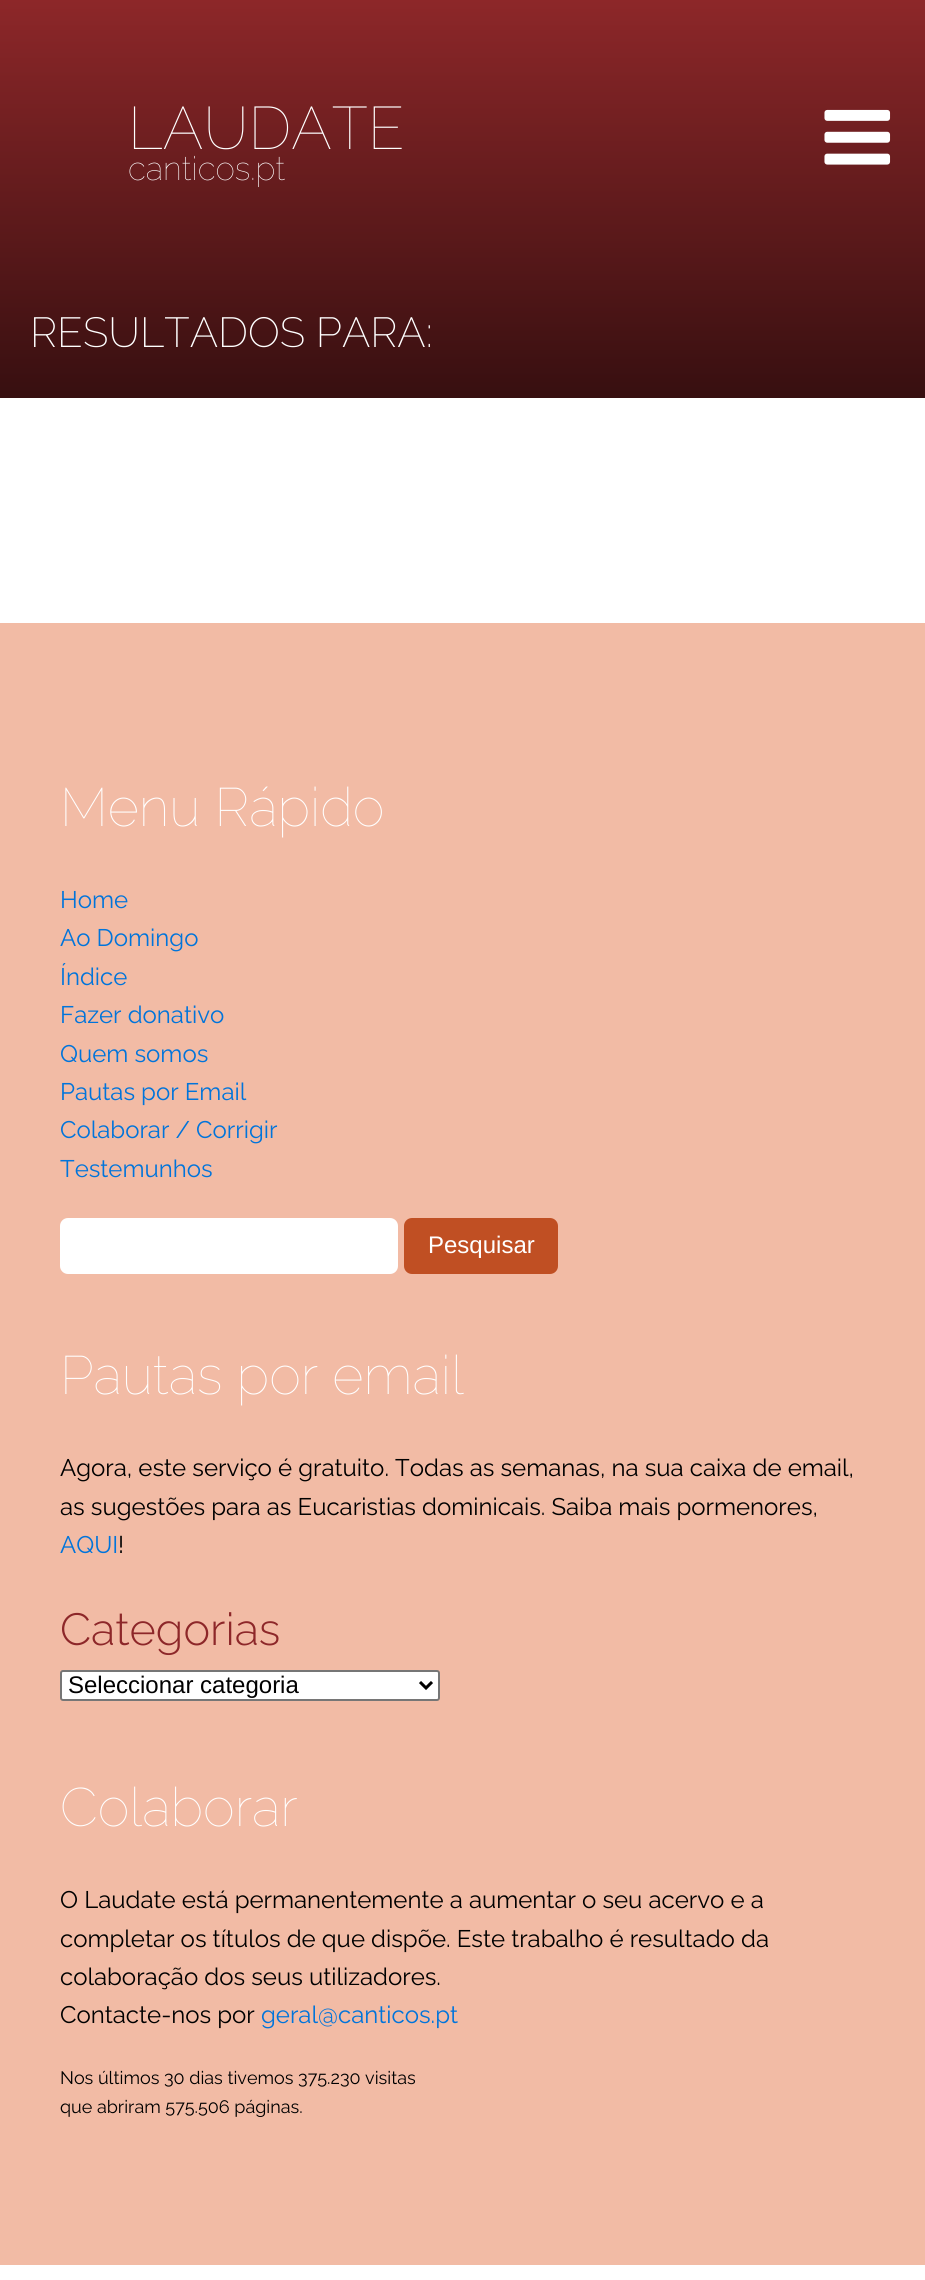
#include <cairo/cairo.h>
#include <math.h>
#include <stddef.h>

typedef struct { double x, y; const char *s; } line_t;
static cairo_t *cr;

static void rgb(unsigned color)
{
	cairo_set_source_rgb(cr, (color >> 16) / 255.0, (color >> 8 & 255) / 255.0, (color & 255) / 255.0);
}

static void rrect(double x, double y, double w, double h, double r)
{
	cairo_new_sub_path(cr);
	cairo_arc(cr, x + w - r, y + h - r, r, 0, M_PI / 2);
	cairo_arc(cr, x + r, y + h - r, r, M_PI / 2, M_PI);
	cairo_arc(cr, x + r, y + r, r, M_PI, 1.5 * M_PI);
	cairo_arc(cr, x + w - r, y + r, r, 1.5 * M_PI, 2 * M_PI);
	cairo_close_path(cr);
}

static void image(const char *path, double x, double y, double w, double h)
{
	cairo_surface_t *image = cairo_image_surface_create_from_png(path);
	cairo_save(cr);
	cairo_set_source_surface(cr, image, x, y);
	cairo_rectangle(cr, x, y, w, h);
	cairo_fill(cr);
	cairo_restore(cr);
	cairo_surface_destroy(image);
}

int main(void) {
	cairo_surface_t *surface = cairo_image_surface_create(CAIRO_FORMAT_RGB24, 925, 2280);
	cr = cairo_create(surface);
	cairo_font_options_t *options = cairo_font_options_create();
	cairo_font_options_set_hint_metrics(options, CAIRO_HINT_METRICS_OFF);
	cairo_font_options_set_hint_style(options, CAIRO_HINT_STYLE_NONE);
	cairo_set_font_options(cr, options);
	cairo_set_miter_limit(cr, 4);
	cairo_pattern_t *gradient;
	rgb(0xffffff);
	cairo_paint(cr);
	gradient = cairo_pattern_create_linear(463, 0, 463, 398);
	cairo_pattern_add_color_stop_rgba(gradient, 0, 0.553, 0.153, 0.161, 1);
	cairo_pattern_add_color_stop_rgba(gradient, 1, 0.216, 0.059, 0.063, 1);
	cairo_set_source(cr, gradient);
	cairo_pattern_destroy(gradient);
	cairo_rectangle(cr, 0, 0, 925, 398);
	cairo_fill(cr);
	image("img/1.png", 824, 109, 67, 56);
	rgb(0xf2bba5);
	cairo_rectangle(cr, 0, 623, 925, 1642);
	cairo_fill(cr);
	rgb(0xffffff);
	rrect(60, 1218, 338, 56, 8);
	cairo_fill(cr);
	rgb(0xc04f23);
	rrect(404, 1218, 154, 56, 8);
	cairo_fill(cr);
	rgb(0xffffff);
	rrect(61, 1671, 378, 29, 2);
	cairo_fill_preserve(cr);
	rgb(0x767676);
	cairo_stroke(cr);
	cairo_new_path(cr);
	cairo_move_to(cr, 420, 1682);
	cairo_line_to(cr, 426, 1688);
	cairo_line_to(cr, 432, 1682);
	rgb(0x000000);
	cairo_set_line_width(cr, 3);
	cairo_stroke(cr);
	cairo_select_font_face(cr, "Raleway Thin", CAIRO_FONT_SLANT_NORMAL, CAIRO_FONT_WEIGHT_NORMAL);
	cairo_set_font_size(cr, 60);
	rgb(0xffffff);
	cairo_move_to(cr, 128, 149);
	cairo_show_text(cr, "LAUDATE");
	cairo_set_font_size(cr, 33);
	cairo_move_to(cr, 128, 180);
	cairo_show_text(cr, "canticos.pt");
	cairo_select_font_face(cr, "Raleway ExtraLight", CAIRO_FONT_SLANT_NORMAL, CAIRO_FONT_WEIGHT_NORMAL);
	cairo_set_font_size(cr, 42);
	cairo_move_to(cr, 30, 347);
	cairo_show_text(cr, "RESULTADOS PARA:");
	cairo_select_font_face(cr, "Raleway Thin", CAIRO_FONT_SLANT_NORMAL, CAIRO_FONT_WEIGHT_NORMAL);
	cairo_set_font_size(cr, 54);
	cairo_move_to(cr, 60, 826);
	cairo_show_text(cr, "Menu Rápido");
	cairo_select_font_face(cr, "Raleway", CAIRO_FONT_SLANT_NORMAL, CAIRO_FONT_WEIGHT_NORMAL);
	cairo_set_font_size(cr, 24);
	rgb(0x0074db);
	{
		static const line_t items[] = {
			{60, 908, "Home"},
			{60, 946, "Ao Domingo"},
			{60, 985, "Índice"},
			{60, 1023, "Fazer donativo"},
			{60, 1062, "Quem somos"},
			{60, 1100, "Pautas por Email"},
			{60, 1138, "Colaborar / Corrigir"},
			{60, 1177, "Testemunhos"},
		};
		for (size_t i = 0; i < sizeof items / sizeof *items; i++) {
			cairo_move_to(cr, items[i].x, items[i].y);
			cairo_show_text(cr, items[i].s);
		}
	}
	cairo_select_font_face(cr, "Liberation Sans", CAIRO_FONT_SLANT_NORMAL, CAIRO_FONT_WEIGHT_NORMAL);
	rgb(0xffffff);
	cairo_move_to(cr, 428, 1253);
	cairo_show_text(cr, "Pesquisar");
	cairo_select_font_face(cr, "Raleway Thin", CAIRO_FONT_SLANT_NORMAL, CAIRO_FONT_WEIGHT_NORMAL);
	cairo_set_font_size(cr, 54);
	cairo_move_to(cr, 60, 1394);
	cairo_show_text(cr, "Pautas por email");
	cairo_select_font_face(cr, "Raleway", CAIRO_FONT_SLANT_NORMAL, CAIRO_FONT_WEIGHT_NORMAL);
	cairo_set_font_size(cr, 24);
	rgb(0x000000);
	cairo_move_to(cr, 60, 1476);
	cairo_show_text(cr, "Agora, este serviço é gratuito. Todas as semanas, na sua caixa de email,");
	cairo_move_to(cr, 60, 1515);
	cairo_show_text(cr, "as sugestões para as Eucaristias dominicais. Saiba mais pormenores,");
	rgb(0x0074db);
	cairo_move_to(cr, 60, 1553);
	cairo_show_text(cr, "AQUI");
	rgb(0x000000);
	cairo_move_to(cr, 118, 1553);
	cairo_show_text(cr, "!");
	cairo_select_font_face(cr, "Raleway Light", CAIRO_FONT_SLANT_NORMAL, CAIRO_FONT_WEIGHT_NORMAL);
	cairo_set_font_size(cr, 45);
	rgb(0x8d2729);
	cairo_move_to(cr, 60, 1645);
	cairo_show_text(cr, "Categorias");
	cairo_select_font_face(cr, "Liberation Sans", CAIRO_FONT_SLANT_NORMAL, CAIRO_FONT_WEIGHT_NORMAL);
	cairo_set_font_size(cr, 24);
	rgb(0x000000);
	cairo_move_to(cr, 68, 1693);
	cairo_show_text(cr, "Seleccionar categoria");
	cairo_select_font_face(cr, "Raleway Thin", CAIRO_FONT_SLANT_NORMAL, CAIRO_FONT_WEIGHT_NORMAL);
	cairo_set_font_size(cr, 54);
	rgb(0xffffff);
	cairo_move_to(cr, 60, 1826);
	cairo_show_text(cr, "Colaborar");
	cairo_select_font_face(cr, "Raleway", CAIRO_FONT_SLANT_NORMAL, CAIRO_FONT_WEIGHT_NORMAL);
	cairo_set_font_size(cr, 24);
	rgb(0x000000);
	{
		static const line_t items[] = {
			{60, 1908, "O Laudate está permanentemente a aumentar o seu acervo e a"},
			{60, 1947, "completar os títulos de que dispõe. Este trabalho é resultado da"},
			{60, 1985, "colaboração dos seus utilizadores."},
			{60, 2023, "Contacte-nos por"},
		};
		for (size_t i = 0; i < sizeof items / sizeof *items; i++) {
			cairo_move_to(cr, items[i].x, items[i].y);
			cairo_show_text(cr, items[i].s);
		}
	}
	rgb(0x0074db);
	cairo_move_to(cr, 261, 2023);
	cairo_show_text(cr, "geral@canticos.pt");
	cairo_set_font_size(cr, 18);
	rgb(0x000000);
	cairo_move_to(cr, 60, 2084);
	cairo_show_text(cr, "Nos últimos 30 dias tivemos 375.230 visitas");
	cairo_move_to(cr, 60, 2113);
	cairo_show_text(cr, "que abriram 575.506 páginas.");
	cairo_surface_write_to_png(surface, "page.png");
	cairo_font_options_destroy(options);
	cairo_destroy(cr);
	cairo_surface_destroy(surface);
	return 0;
}
